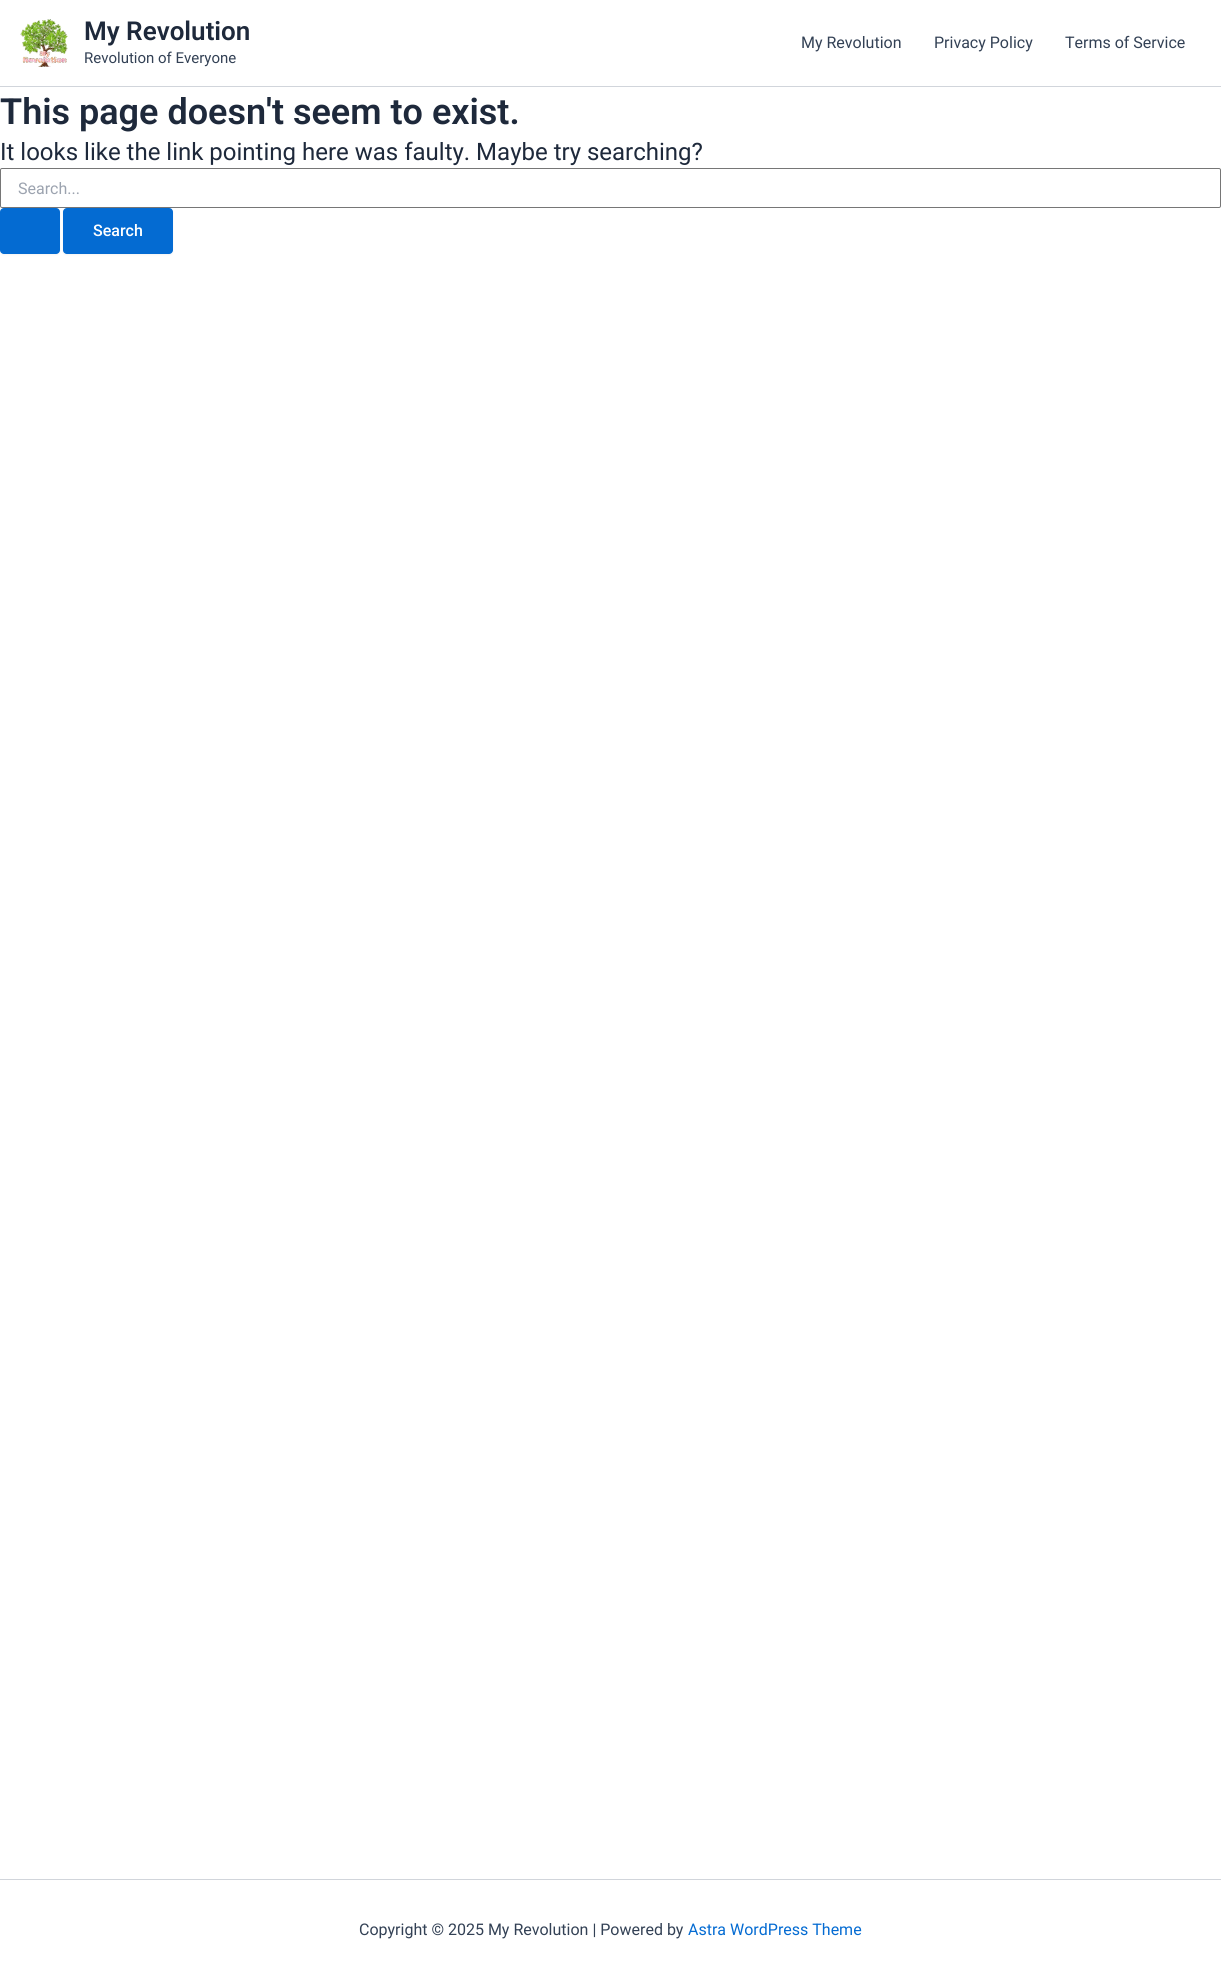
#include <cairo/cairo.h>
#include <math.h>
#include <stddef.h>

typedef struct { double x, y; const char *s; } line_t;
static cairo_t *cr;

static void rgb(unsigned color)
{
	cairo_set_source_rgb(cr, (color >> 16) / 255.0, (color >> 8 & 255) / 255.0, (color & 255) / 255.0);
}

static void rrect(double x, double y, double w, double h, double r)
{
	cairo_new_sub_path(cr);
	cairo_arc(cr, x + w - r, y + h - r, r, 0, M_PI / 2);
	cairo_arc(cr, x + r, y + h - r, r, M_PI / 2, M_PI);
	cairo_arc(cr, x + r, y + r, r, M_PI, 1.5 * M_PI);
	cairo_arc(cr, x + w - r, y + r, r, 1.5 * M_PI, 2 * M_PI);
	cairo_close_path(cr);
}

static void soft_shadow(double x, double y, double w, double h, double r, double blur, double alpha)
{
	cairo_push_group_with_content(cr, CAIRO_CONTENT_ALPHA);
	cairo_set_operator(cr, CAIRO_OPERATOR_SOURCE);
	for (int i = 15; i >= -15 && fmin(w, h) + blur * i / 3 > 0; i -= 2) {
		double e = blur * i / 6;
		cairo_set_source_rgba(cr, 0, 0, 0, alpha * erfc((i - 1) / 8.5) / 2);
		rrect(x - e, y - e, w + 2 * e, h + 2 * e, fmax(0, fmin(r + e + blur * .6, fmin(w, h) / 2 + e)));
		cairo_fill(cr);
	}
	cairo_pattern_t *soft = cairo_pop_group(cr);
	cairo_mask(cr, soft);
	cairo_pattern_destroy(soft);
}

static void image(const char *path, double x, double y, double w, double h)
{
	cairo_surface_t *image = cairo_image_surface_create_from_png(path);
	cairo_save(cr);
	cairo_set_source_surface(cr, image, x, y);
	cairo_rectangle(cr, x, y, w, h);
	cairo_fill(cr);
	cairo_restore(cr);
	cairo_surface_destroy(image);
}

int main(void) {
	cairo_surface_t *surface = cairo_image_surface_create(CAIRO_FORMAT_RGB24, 1221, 1980);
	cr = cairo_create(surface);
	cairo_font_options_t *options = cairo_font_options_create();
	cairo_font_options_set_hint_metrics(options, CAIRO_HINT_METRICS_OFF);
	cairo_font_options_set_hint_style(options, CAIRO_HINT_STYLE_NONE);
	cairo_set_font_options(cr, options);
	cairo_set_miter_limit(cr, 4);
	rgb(0xffffff);
	cairo_paint(cr);
	rgb(0xd1d5db);
	cairo_rectangle(cr, 0, 86, 1221, 1);
	cairo_fill(cr);
	image("img/1.png", 20, 19, 48, 48);
	rrect(0.5, 168.5, 1220, 39, 1.5);
	rgb(0x767676);
	cairo_set_line_width(cr, 1);
	cairo_stroke(cr);
	rgb(0x000000);
	soft_shadow(0, 209, 60, 46, 4, 1, 0.05);
	rgb(0x046bd2);
	rrect(0, 208, 60, 46, 4);
	cairo_fill(cr);
	rgb(0x000000);
	soft_shadow(63, 209, 110, 46, 4, 1, 0.05);
	rgb(0x046bd2);
	rrect(63, 208, 110, 46, 4);
	cairo_fill(cr);
	rgb(0xd1d5db);
	cairo_rectangle(cr, 0, 1879, 1221, 1);
	cairo_fill(cr);
	cairo_select_font_face(cr, "Roboto SemiBold", CAIRO_FONT_SLANT_NORMAL, CAIRO_FONT_WEIGHT_NORMAL);
	cairo_set_font_size(cr, 26);
	rgb(0x1e293b);
	cairo_move_to(cr, 84, 40);
	cairo_show_text(cr, "My Revolution");
	cairo_select_font_face(cr, "Roboto", CAIRO_FONT_SLANT_NORMAL, CAIRO_FONT_WEIGHT_NORMAL);
	cairo_set_font_size(cr, 15);
	rgb(0x334155);
	cairo_move_to(cr, 84, 63);
	cairo_show_text(cr, "Revolution of Everyone");
	cairo_set_font_size(cr, 16);
	{
		static const line_t items[] = {
			{801, 48, "My Revolution"},
			{934, 48, "Privacy Policy"},
			{1065, 48, "Terms of Service"},
		};
		for (size_t i = 0; i < sizeof items / sizeof *items; i++) {
			cairo_move_to(cr, items[i].x, items[i].y);
			cairo_show_text(cr, items[i].s);
		}
	}
	cairo_select_font_face(cr, "Roboto SemiBold", CAIRO_FONT_SLANT_NORMAL, CAIRO_FONT_WEIGHT_NORMAL);
	cairo_set_font_size(cr, 36);
	rgb(0x1e293b);
	cairo_move_to(cr, 0, 124);
	cairo_show_text(cr, "This page doesn't seem to exist.");
	cairo_select_font_face(cr, "Roboto", CAIRO_FONT_SLANT_NORMAL, CAIRO_FONT_WEIGHT_NORMAL);
	cairo_set_font_size(cr, 24);
	cairo_move_to(cr, 0, 160);
	cairo_show_text(cr, "It looks like the link pointing here was faulty. Maybe try searching?");
	cairo_set_font_size(cr, 16);
	rgb(0x9ca3af);
	cairo_move_to(cr, 18, 194);
	cairo_show_text(cr, "Search...");
	cairo_select_font_face(cr, "Roboto Medium", CAIRO_FONT_SLANT_NORMAL, CAIRO_FONT_WEIGHT_NORMAL);
	rgb(0xffffff);
	cairo_move_to(cr, 93, 236);
	cairo_show_text(cr, "Search");
	cairo_select_font_face(cr, "Roboto", CAIRO_FONT_SLANT_NORMAL, CAIRO_FONT_WEIGHT_NORMAL);
	rgb(0x334155);
	cairo_move_to(cr, 359, 1935);
	cairo_show_text(cr, "Copyright © 2025 My Revolution | Powered by");
	rgb(0x046bd2);
	cairo_move_to(cr, 688, 1935);
	cairo_show_text(cr, "Astra WordPress Theme");
	cairo_surface_write_to_png(surface, "page.png");
	cairo_font_options_destroy(options);
	cairo_destroy(cr);
	cairo_surface_destroy(surface);
	return 0;
}
